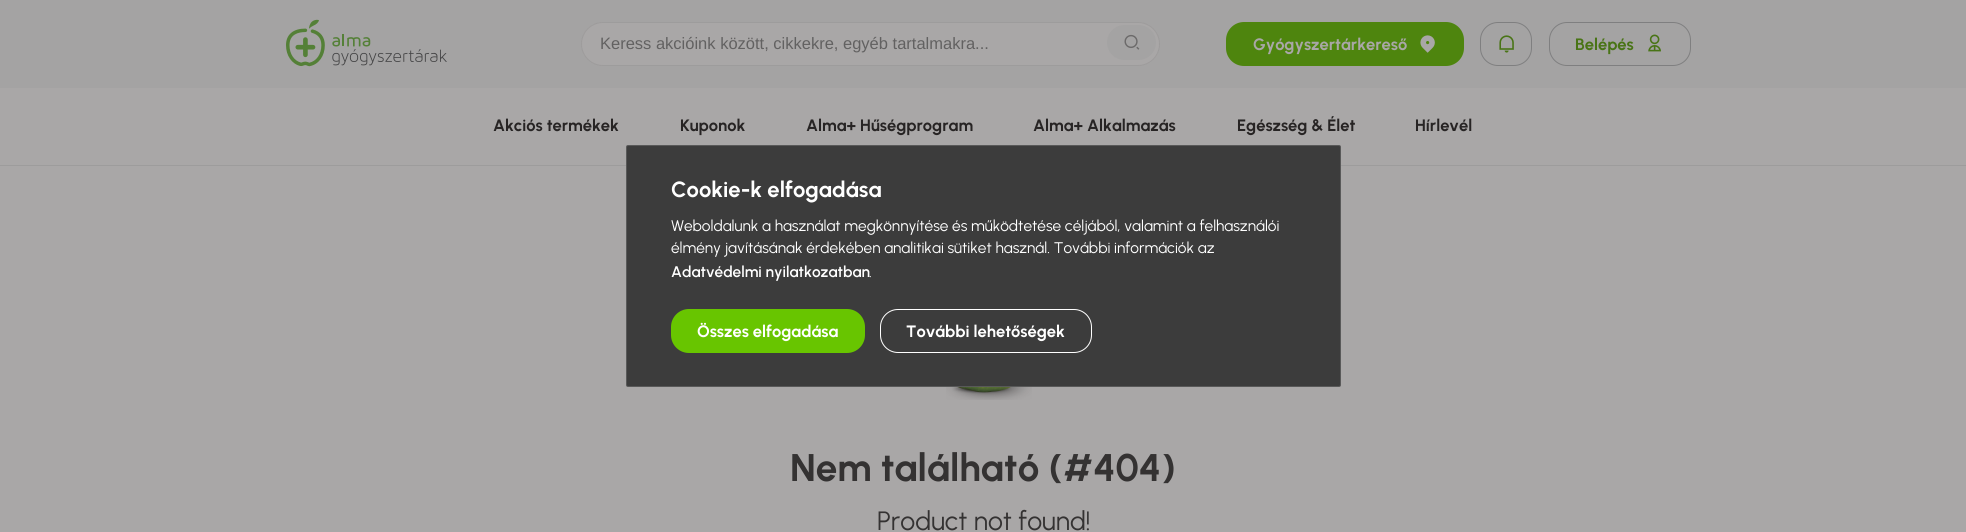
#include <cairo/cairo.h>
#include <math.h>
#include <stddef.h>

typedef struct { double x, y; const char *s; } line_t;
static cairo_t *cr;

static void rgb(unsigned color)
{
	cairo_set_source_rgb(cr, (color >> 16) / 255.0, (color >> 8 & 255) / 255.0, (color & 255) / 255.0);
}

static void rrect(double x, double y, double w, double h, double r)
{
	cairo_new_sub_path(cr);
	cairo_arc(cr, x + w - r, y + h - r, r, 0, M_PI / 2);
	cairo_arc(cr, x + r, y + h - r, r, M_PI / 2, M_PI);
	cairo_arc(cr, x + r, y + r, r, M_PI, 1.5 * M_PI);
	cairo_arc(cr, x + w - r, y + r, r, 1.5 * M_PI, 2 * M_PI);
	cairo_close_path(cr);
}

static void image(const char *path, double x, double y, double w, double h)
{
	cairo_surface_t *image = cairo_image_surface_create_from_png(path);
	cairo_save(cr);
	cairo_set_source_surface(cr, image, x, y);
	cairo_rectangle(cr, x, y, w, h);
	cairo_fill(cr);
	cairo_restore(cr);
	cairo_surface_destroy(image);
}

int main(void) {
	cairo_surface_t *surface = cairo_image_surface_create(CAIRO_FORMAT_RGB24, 1966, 532);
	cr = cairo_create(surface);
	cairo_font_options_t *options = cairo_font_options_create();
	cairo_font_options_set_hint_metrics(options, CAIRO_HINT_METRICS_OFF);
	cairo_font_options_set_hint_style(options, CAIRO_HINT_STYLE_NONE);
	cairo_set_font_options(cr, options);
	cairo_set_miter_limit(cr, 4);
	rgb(0xa9a7a7);
	cairo_paint(cr);
	rgb(0xa4a3a3);
	cairo_rectangle(cr, 0, 0, 1966, 88);
	cairo_fill(cr);
	image("img/1.png", 286, 19, 161, 48);
	rgb(0xa9a7a7);
	rrect(581, 22, 579, 44, 22);
	cairo_fill(cr);
	rrect(581.5, 22.5, 578, 43, 21.5);
	cairo_set_source_rgba(cr, 0.204, 0.196, 0.196, 0.1);
	cairo_set_line_width(cr, 1);
	cairo_stroke(cr);
	rgb(0xa4a3a3);
	rrect(1107, 25, 49, 35, 17.5);
	cairo_fill(cr);
	image("img/2.png", 1124, 34, 16, 16);
	rgb(0x4e850e);
	rrect(1226, 22, 238, 44, 18);
	cairo_fill(cr);
	image("img/3.png", 1420, 35, 15, 18);
	rrect(1480.5, 22.5, 51, 43, 17.5);
	rgb(0x7f7f80);
	cairo_stroke(cr);
	image("img/4.png", 1499, 35, 15, 18);
	rrect(1549.5, 22.5, 141, 43, 17.5);
	cairo_stroke(cr);
	image("img/5.png", 1648, 34, 13, 18);
	rgb(0x9d9c9c);
	cairo_rectangle(cr, 0, 165, 1966, 1);
	cairo_fill(cr);
	rgb(0x3c3c3c);
	rrect(626, 145, 715, 242, 2);
	cairo_fill(cr);
	rrect(626.5, 145.5, 714, 241, 1.5);
	cairo_set_source_rgba(cr, 1, 1, 1, 0.15);
	cairo_stroke(cr);
	rgb(0x68c500);
	rrect(671, 309, 194, 44, 18);
	cairo_fill(cr);
	rrect(880.5, 309.5, 211, 43, 17.5);
	rgb(0xffffff);
	cairo_stroke(cr);
	image("img/6.png", 946, 387, 86, 13);
	cairo_select_font_face(cr, "Liberation Sans", CAIRO_FONT_SLANT_NORMAL, CAIRO_FONT_WEIGHT_NORMAL);
	cairo_set_font_size(cr, 16.5);
	rgb(0x626161);
	cairo_move_to(cr, 600, 49);
	cairo_show_text(cr, "Keress akcióink között, cikkekre, egyéb tartalmakra...");
	cairo_select_font_face(cr, "Urbanist", CAIRO_FONT_SLANT_NORMAL, CAIRO_FONT_WEIGHT_BOLD);
	rgb(0xa9a7a7);
	cairo_move_to(cr, 1253, 50);
	cairo_show_text(cr, "Gyógyszertárkereső");
	rgb(0x497416);
	cairo_move_to(cr, 1575, 50);
	cairo_show_text(cr, "Belépés");
	rgb(0x272424);
	{
		static const line_t items[] = {
			{493, 131, "Akciós termékek"},
			{680, 131, "Kuponok"},
			{806, 131, "Alma+ Hűségprogram"},
			{1033, 131, "Alma+ Alkalmazás"},
			{1237, 131, "Egészség & Élet"},
			{1415, 131, "Hírlevél"},
		};
		for (size_t i = 0; i < sizeof items / sizeof *items; i++) {
			cairo_move_to(cr, items[i].x, items[i].y);
			cairo_show_text(cr, items[i].s);
		}
	}
	cairo_set_font_size(cr, 22);
	rgb(0xffffff);
	cairo_move_to(cr, 671, 197);
	cairo_show_text(cr, "Cookie-k elfogadása");
	cairo_select_font_face(cr, "Urbanist", CAIRO_FONT_SLANT_NORMAL, CAIRO_FONT_WEIGHT_NORMAL);
	cairo_set_font_size(cr, 15.4);
	cairo_move_to(cr, 671, 231);
	cairo_show_text(cr, "Weboldalunk a használat megkönnyítése és működtetése céljából, valamint a felhasználói");
	cairo_move_to(cr, 671, 253);
	cairo_show_text(cr, "élmény javításának érdekében analitikai sütiket használ. További információk az");
	cairo_select_font_face(cr, "Urbanist SemiBold", CAIRO_FONT_SLANT_NORMAL, CAIRO_FONT_WEIGHT_NORMAL);
	cairo_move_to(cr, 671, 277);
	cairo_show_text(cr, "Adatvédelmi nyilatkozatban");
	cairo_select_font_face(cr, "Urbanist", CAIRO_FONT_SLANT_NORMAL, CAIRO_FONT_WEIGHT_NORMAL);
	cairo_move_to(cr, 869, 277);
	cairo_show_text(cr, ".");
	cairo_select_font_face(cr, "Urbanist", CAIRO_FONT_SLANT_NORMAL, CAIRO_FONT_WEIGHT_BOLD);
	cairo_set_font_size(cr, 16.5);
	cairo_move_to(cr, 697, 337);
	cairo_show_text(cr, "Összes elfogadása");
	cairo_move_to(cr, 906, 337);
	cairo_show_text(cr, "További lehetőségek");
	cairo_set_font_size(cr, 38.5);
	rgb(0x343232);
	cairo_move_to(cr, 790, 481);
	cairo_show_text(cr, "Nem található (#404)");
	cairo_select_font_face(cr, "Urbanist", CAIRO_FONT_SLANT_NORMAL, CAIRO_FONT_WEIGHT_NORMAL);
	cairo_set_font_size(cr, 26.5);
	cairo_move_to(cr, 877, 530);
	cairo_show_text(cr, "Product not found!");
	cairo_surface_write_to_png(surface, "page.png");
	cairo_font_options_destroy(options);
	cairo_destroy(cr);
	cairo_surface_destroy(surface);
	return 0;
}
